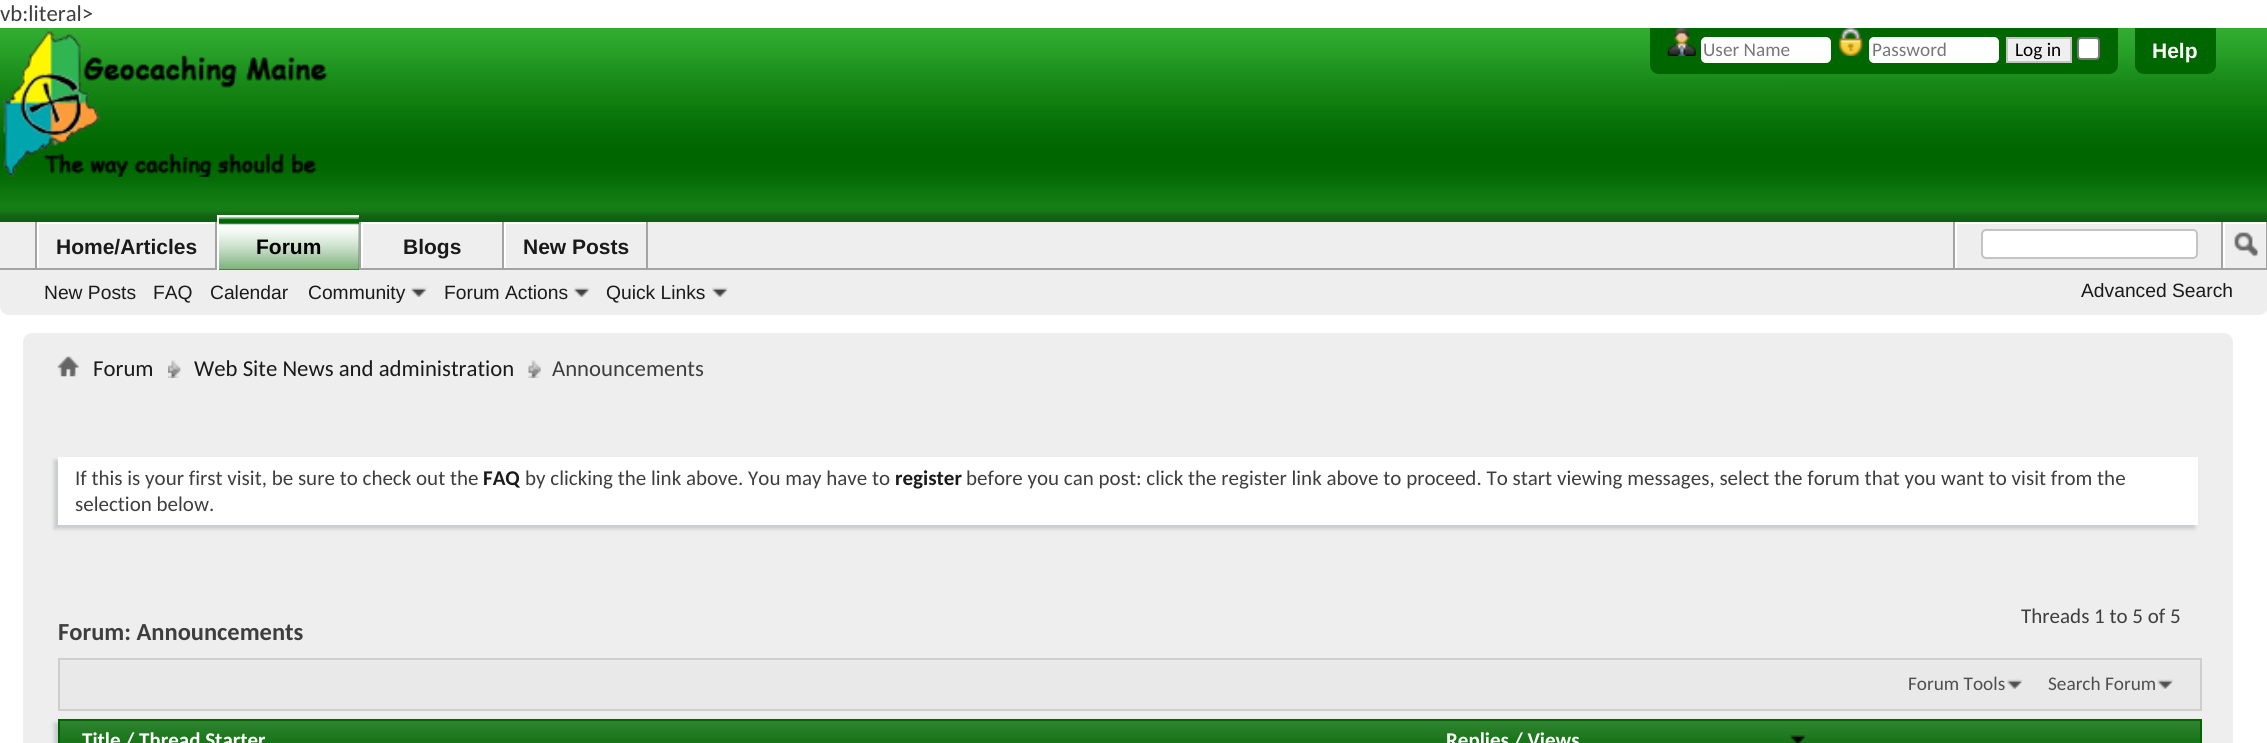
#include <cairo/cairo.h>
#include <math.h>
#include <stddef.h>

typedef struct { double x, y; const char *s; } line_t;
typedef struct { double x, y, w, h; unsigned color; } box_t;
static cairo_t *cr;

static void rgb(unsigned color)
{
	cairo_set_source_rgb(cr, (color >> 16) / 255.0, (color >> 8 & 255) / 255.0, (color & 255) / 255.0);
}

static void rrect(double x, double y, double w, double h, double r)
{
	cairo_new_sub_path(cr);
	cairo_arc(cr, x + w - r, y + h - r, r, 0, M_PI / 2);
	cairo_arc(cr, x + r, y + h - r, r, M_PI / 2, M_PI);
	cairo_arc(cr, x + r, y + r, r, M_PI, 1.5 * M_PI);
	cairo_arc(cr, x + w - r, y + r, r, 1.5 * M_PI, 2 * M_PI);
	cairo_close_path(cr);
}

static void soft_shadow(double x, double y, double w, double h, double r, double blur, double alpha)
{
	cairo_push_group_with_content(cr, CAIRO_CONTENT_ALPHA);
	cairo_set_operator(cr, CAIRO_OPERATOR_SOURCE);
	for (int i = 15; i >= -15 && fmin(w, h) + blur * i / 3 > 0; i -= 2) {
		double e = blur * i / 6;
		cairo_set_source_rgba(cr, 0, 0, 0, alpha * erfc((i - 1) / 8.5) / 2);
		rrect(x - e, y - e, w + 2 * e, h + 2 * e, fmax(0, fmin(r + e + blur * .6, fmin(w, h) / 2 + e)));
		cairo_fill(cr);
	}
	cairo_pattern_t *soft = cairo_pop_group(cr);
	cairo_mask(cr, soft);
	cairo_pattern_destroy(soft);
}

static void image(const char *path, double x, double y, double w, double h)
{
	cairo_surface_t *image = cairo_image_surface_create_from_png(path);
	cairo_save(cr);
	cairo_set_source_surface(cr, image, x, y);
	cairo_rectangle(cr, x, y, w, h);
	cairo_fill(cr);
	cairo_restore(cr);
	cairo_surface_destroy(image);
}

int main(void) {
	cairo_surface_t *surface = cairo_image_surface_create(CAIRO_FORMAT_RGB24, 2267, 743);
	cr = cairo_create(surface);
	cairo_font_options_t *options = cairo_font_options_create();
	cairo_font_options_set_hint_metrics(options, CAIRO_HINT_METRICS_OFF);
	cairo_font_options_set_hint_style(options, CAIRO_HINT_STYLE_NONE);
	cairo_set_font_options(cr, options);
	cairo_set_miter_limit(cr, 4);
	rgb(0xffffff);
	cairo_paint(cr);
	image("img/1.png", 0, 28, 2267, 194);
	image("img/2.png", 3, 31, 325, 146);
	rgb(0x006600);
	cairo_new_path(cr);
	cairo_move_to(cr, 1650, 28);
	cairo_line_to(cr, 2118, 28);
	cairo_line_to(cr, 2118, 65);
	cairo_curve_to(cr, 2118, 70, 2114, 74, 2109, 74);
	cairo_line_to(cr, 1659, 74);
	cairo_curve_to(cr, 1654, 74, 1650, 70, 1650, 65);
	cairo_close_path(cr);
	cairo_fill(cr);
	image("img/3.png", 1667, 28, 29, 28);
	rgb(0xffffff);
	rrect(1701, 37, 130, 26, 5);
	cairo_fill(cr);
	image("img/4.png", 1838, 28, 25, 28);
	rrect(1869, 37, 130, 26, 5);
	cairo_fill(cr);
	rgb(0xefefef);
	cairo_rectangle(cr, 2007, 38, 64, 24);
	cairo_fill_preserve(cr);
	rgb(0xc4c4c4);
	cairo_stroke(cr);
	rgb(0xffffff);
	rrect(2078, 38, 21, 21, 3);
	cairo_fill_preserve(cr);
	rgb(0x767676);
	cairo_stroke(cr);
	rgb(0x006600);
	cairo_new_path(cr);
	cairo_move_to(cr, 2135, 28);
	cairo_line_to(cr, 2216, 28);
	cairo_line_to(cr, 2216, 65);
	cairo_curve_to(cr, 2216, 70, 2212, 74, 2207, 74);
	cairo_line_to(cr, 2144, 74);
	cairo_curve_to(cr, 2139, 74, 2135, 70, 2135, 65);
	cairo_close_path(cr);
	cairo_fill(cr);
	rgb(0xefeeee);
	cairo_new_path(cr);
	cairo_move_to(cr, 0, 222);
	cairo_line_to(cr, 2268, 222);
	cairo_line_to(cr, 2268, 306);
	cairo_curve_to(cr, 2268, 311, 2264, 315, 2259, 315);
	cairo_line_to(cr, 9, 315);
	cairo_curve_to(cr, 4, 315, 0, 311, 0, 306);
	cairo_close_path(cr);
	cairo_fill(cr);
	{
		static const box_t items[] = {
			{215, 222, 2, 48, 0xa3a3a3},
			{35, 222, 2, 48, 0xa3a3a3},
			{37, 222, 178, 2, 0xffffff},
			{37, 222, 2, 48, 0xffffff},
			{359, 222, 2, 46, 0xa3a3a3},
			{502, 222, 2, 48, 0xa3a3a3},
			{361, 222, 141, 2, 0xffffff},
			{361, 222, 2, 48, 0xffffff},
			{646, 222, 2, 48, 0xa3a3a3},
			{504, 222, 142, 2, 0xffffff},
			{504, 222, 2, 48, 0xffffff},
			{0, 268, 2267, 2, 0xa3a3a3},
			{219, 217, 140, 53, 0x006600},
		};
		for (size_t i = 0; i < sizeof items / sizeof *items; i++) {
			rgb(items[i].color);
			cairo_rectangle(cr, items[i].x, items[i].y, items[i].w, items[i].h);
			cairo_fill(cr);
		}
	}
	image("img/5.png", 219, 217, 140, 53);
	rgb(0xffffff);
	cairo_rectangle(cr, 217, 215, 142, 2);
	cairo_fill(cr);
	cairo_rectangle(cr, 217, 215, 2, 55);
	cairo_fill(cr);
	image("img/6.png", 360, 224, 1, 21);
	image("img/7.png", 411, 287, 16, 10);
	image("img/8.png", 573, 287, 17, 10);
	image("img/9.png", 712, 287, 16, 10);
	{
		static const box_t items[] = {
			{1953, 222, 2, 46, 0xa3a3a3},
			{1955, 222, 266, 2, 0xffffff},
			{1955, 222, 2, 46, 0xffffff},
		};
		for (size_t i = 0; i < sizeof items / sizeof *items; i++) {
			rgb(items[i].color);
			cairo_rectangle(cr, items[i].x, items[i].y, items[i].w, items[i].h);
			cairo_fill(cr);
		}
	}
	rrect(1982, 230, 215, 28, 4);
	cairo_fill_preserve(cr);
	rgb(0xc4c4c4);
	cairo_stroke(cr);
	{
		static const box_t items[] = {
			{2266, 222, 1, 46, 0xa3a3a3},
			{2221, 222, 2, 46, 0xa3a3a3},
			{2223, 222, 43, 2, 0xffffff},
			{2223, 222, 2, 46, 0xffffff},
		};
		for (size_t i = 0; i < sizeof items / sizeof *items; i++) {
			rgb(items[i].color);
			cairo_rectangle(cr, items[i].x, items[i].y, items[i].w, items[i].h);
			cairo_fill(cr);
		}
	}
	image("img/10.png", 2234, 232, 24, 26);
	rgb(0xefeeee);
	rrect(23, 333, 2210, 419, 9);
	cairo_fill(cr);
	image("img/11.png", 57, 356, 22, 21);
	image("img/12.png", 168, 360, 13, 18);
	image("img/13.png", 528, 360, 13, 18);
	rgb(0xc7cbcc);
	soft_shadow(54, 460, 2141, 69, 0, 2, 1);
	rgb(0xffffff);
	cairo_rectangle(cr, 58, 457, 2140, 68);
	cairo_fill(cr);
	rgb(0xe9e9e9);
	cairo_rectangle(cr, 60, 661, 2140, 48);
	cairo_fill(cr);
	cairo_rectangle(cr, 59, 659, 2142, 51);
	rgb(0xcecece);
	cairo_stroke(cr);
	image("img/14.png", 2007, 679, 16, 12);
	image("img/15.png", 2157, 679, 17, 12);
	rgb(0xc7cbcc);
	soft_shadow(54, 723, 2144, 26, 0, 2, 1);
	rgb(0x006600);
	cairo_rectangle(cr, 60, 721, 2140, 22);
	cairo_fill(cr);
	image("img/16.png", 60, 721, 2140, 22);
	cairo_rectangle(cr, 59, 720, 2142, 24);
	cairo_stroke(cr);
	image("img/17.png", 1790, 735, 16, 8);
	cairo_select_font_face(cr, "Carlito", CAIRO_FONT_SLANT_NORMAL, CAIRO_FONT_WEIGHT_NORMAL);
	cairo_set_font_size(cr, 22.75);
	rgb(0x3e3e3e);
	cairo_move_to(cr, 0, 21);
	cairo_show_text(cr, "vb:literal>");
	cairo_set_font_size(cr, 19.25);
	rgb(0x777777);
	cairo_move_to(cr, 1703, 56);
	cairo_show_text(cr, "User Name");
	cairo_move_to(cr, 1872, 56);
	cairo_show_text(cr, "Password");
	rgb(0x000000);
	cairo_move_to(cr, 2015, 56);
	cairo_show_text(cr, "Log in");
	cairo_select_font_face(cr, "Liberation Sans", CAIRO_FONT_SLANT_NORMAL, CAIRO_FONT_WEIGHT_BOLD);
	cairo_set_font_size(cr, 21);
	rgb(0xffffff);
	cairo_move_to(cr, 2152, 58);
	cairo_show_text(cr, "Help");
	rgb(0x1a1a1a);
	cairo_move_to(cr, 56, 254);
	cairo_show_text(cr, "Home/Articles");
	rgb(0x000000);
	cairo_move_to(cr, 256, 254);
	cairo_show_text(cr, "Forum");
	rgb(0x1a1a1a);
	cairo_move_to(cr, 403, 254);
	cairo_show_text(cr, "Blogs");
	cairo_move_to(cr, 523, 254);
	cairo_show_text(cr, "New Posts");
	cairo_select_font_face(cr, "Liberation Sans", CAIRO_FONT_SLANT_NORMAL, CAIRO_FONT_WEIGHT_NORMAL);
	cairo_set_font_size(cr, 19.25);
	{
		static const line_t items[] = {
			{44, 299, "New Posts"},
			{153, 299, "FAQ"},
			{210, 299, "Calendar"},
			{308, 299, "Community"},
			{444, 299, "Forum Actions"},
			{606, 299, "Quick Links"},
			{2081, 297, "Advanced Search"},
		};
		for (size_t i = 0; i < sizeof items / sizeof *items; i++) {
			cairo_move_to(cr, items[i].x, items[i].y);
			cairo_show_text(cr, items[i].s);
		}
	}
	cairo_select_font_face(cr, "Carlito", CAIRO_FONT_SLANT_NORMAL, CAIRO_FONT_WEIGHT_NORMAL);
	cairo_set_font_size(cr, 22.75);
	cairo_move_to(cr, 93, 376);
	cairo_show_text(cr, "Forum");
	cairo_move_to(cr, 194, 376);
	cairo_show_text(cr, "Web Site News and administration");
	rgb(0x3e3e3e);
	cairo_move_to(cr, 552, 376);
	cairo_show_text(cr, "Announcements");
	cairo_set_font_size(cr, 21);
	cairo_move_to(cr, 75, 485);
	cairo_show_text(cr, "If this is your first visit, be sure to check out the");
	cairo_select_font_face(cr, "Carlito", CAIRO_FONT_SLANT_NORMAL, CAIRO_FONT_WEIGHT_BOLD);
	rgb(0x1a1a1a);
	cairo_move_to(cr, 483, 485);
	cairo_show_text(cr, "FAQ");
	cairo_select_font_face(cr, "Carlito", CAIRO_FONT_SLANT_NORMAL, CAIRO_FONT_WEIGHT_NORMAL);
	rgb(0x3e3e3e);
	cairo_move_to(cr, 525, 485);
	cairo_show_text(cr, "by clicking the link above. You may have to");
	cairo_select_font_face(cr, "Carlito", CAIRO_FONT_SLANT_NORMAL, CAIRO_FONT_WEIGHT_BOLD);
	rgb(0x1a1a1a);
	cairo_move_to(cr, 895, 485);
	cairo_show_text(cr, "register");
	cairo_select_font_face(cr, "Carlito", CAIRO_FONT_SLANT_NORMAL, CAIRO_FONT_WEIGHT_NORMAL);
	rgb(0x3e3e3e);
	{
		static const line_t items[] = {
			{966, 485, "before you can post: click the register link above to proceed. To start viewing messages, select the forum that you want to visit from the"},
			{75, 511, "selection below."},
			{2021, 623, "Threads 1 to 5 of 5"},
		};
		for (size_t i = 0; i < sizeof items / sizeof *items; i++) {
			cairo_move_to(cr, items[i].x, items[i].y);
			cairo_show_text(cr, items[i].s);
		}
	}
	cairo_select_font_face(cr, "Carlito", CAIRO_FONT_SLANT_NORMAL, CAIRO_FONT_WEIGHT_BOLD);
	cairo_set_font_size(cr, 24.5);
	cairo_move_to(cr, 58, 640);
	cairo_show_text(cr, "Forum: Announcements");
	cairo_select_font_face(cr, "Carlito", CAIRO_FONT_SLANT_NORMAL, CAIRO_FONT_WEIGHT_NORMAL);
	cairo_set_font_size(cr, 19.25);
	rgb(0x4e4e4e);
	cairo_move_to(cr, 1908, 690);
	cairo_show_text(cr, "Forum Tools");
	cairo_move_to(cr, 2048, 690);
	cairo_show_text(cr, "Search Forum");
	cairo_select_font_face(cr, "Carlito", CAIRO_FONT_SLANT_NORMAL, CAIRO_FONT_WEIGHT_BOLD);
	cairo_set_font_size(cr, 21);
	rgb(0xffffff);
	cairo_move_to(cr, 82, 747);
	cairo_show_text(cr, "Title / Thread Starter");
	cairo_move_to(cr, 1446, 747);
	cairo_show_text(cr, "Replies / Views");
	cairo_surface_write_to_png(surface, "page.png");
	cairo_font_options_destroy(options);
	cairo_destroy(cr);
	cairo_surface_destroy(surface);
	return 0;
}
